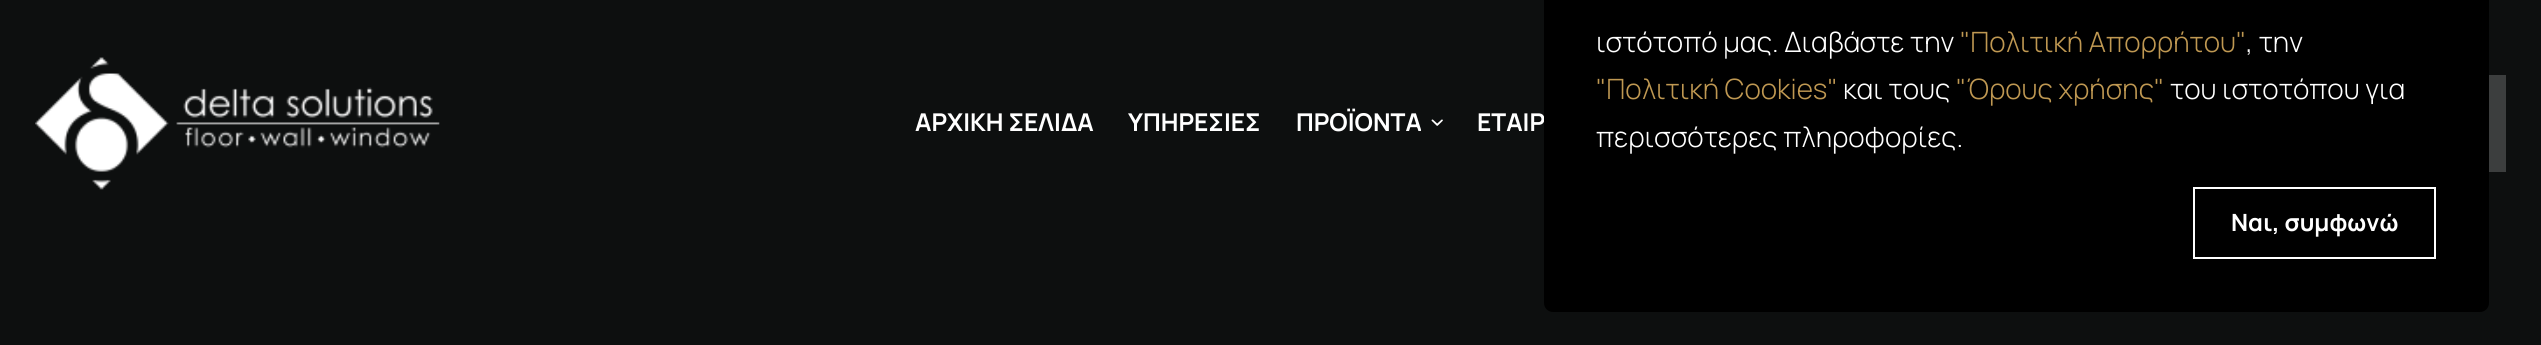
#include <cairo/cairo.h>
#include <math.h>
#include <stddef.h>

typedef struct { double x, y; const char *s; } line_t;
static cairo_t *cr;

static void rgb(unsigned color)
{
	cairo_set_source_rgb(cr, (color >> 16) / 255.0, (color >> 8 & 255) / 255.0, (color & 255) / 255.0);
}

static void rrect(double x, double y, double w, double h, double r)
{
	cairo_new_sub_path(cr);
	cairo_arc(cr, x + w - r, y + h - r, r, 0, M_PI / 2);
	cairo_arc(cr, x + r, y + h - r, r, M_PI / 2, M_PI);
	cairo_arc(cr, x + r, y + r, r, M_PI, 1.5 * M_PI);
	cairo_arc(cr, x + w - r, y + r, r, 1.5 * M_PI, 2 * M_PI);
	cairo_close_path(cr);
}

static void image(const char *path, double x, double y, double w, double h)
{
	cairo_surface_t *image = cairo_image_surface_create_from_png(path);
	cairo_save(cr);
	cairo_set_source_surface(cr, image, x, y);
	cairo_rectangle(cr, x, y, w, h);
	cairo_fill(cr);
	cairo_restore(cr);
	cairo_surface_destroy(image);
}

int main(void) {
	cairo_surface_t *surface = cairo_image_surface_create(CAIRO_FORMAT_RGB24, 2541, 345);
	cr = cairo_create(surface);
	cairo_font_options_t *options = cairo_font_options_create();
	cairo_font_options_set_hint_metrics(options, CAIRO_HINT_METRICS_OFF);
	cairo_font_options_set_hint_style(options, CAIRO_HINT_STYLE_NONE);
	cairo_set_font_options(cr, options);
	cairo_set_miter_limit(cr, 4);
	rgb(0x0d0f0f);
	cairo_paint(cr);
	image("img/1.png", 35, 57, 405, 133);
	image("img/2.png", 1431, 119, 12, 7);
	rgb(0x3c3e3e);
	cairo_rectangle(cr, 2489, 75, 17, 97);
	cairo_fill(cr);
	cairo_select_font_face(cr, "Manrope ExtraLight", CAIRO_FONT_SLANT_NORMAL, CAIRO_FONT_WEIGHT_NORMAL);
	cairo_set_font_size(cr, 24.5);
	rgb(0xffffff);
	{
		static const line_t items[] = {
			{915, 131, "ΑΡΧΙΚΗ ΣΕΛΙΔΑ"},
			{1128, 131, "ΥΠΗΡΕΣΙΕΣ"},
			{1296, 131, "ΠΡΟΪΟΝΤΑ"},
			{1477, 131, "ΕΤΑΙΡ"},
		};
		for (size_t i = 0; i < sizeof items / sizeof *items; i++) {
			cairo_move_to(cr, items[i].x, items[i].y);
			cairo_show_text(cr, items[i].s);
		}
	}
	rgb(0x000000);
	rrect(1544, -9, 945, 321, 9);
	cairo_fill(cr);
	cairo_select_font_face(cr, "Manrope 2 ExtraLight", CAIRO_FONT_SLANT_NORMAL, CAIRO_FONT_WEIGHT_NORMAL);
	cairo_set_font_size(cr, 28);
	rgb(0xffffff);
	cairo_move_to(cr, 1596, 52);
	cairo_show_text(cr, "ιστότοπό μας. Διαβάστε την");
	rgb(0xbf9852);
	cairo_move_to(cr, 1960, 52);
	cairo_show_text(cr, "\"Πολιτική Απορρήτου\"");
	rgb(0xffffff);
	cairo_move_to(cr, 2246, 52);
	cairo_show_text(cr, ", την");
	rgb(0xbf9852);
	cairo_move_to(cr, 1596, 99);
	cairo_show_text(cr, "\"Πολιτική Cookies\"");
	rgb(0xffffff);
	cairo_move_to(cr, 1843, 99);
	cairo_show_text(cr, "και τους");
	rgb(0xbf9852);
	cairo_move_to(cr, 1956, 99);
	cairo_show_text(cr, "\"Όρους χρήσης\"");
	rgb(0xffffff);
	cairo_move_to(cr, 2170, 99);
	cairo_show_text(cr, "του ιστοτόπου για");
	cairo_move_to(cr, 1596, 147);
	cairo_show_text(cr, "περισσότερες πληροφορίες.");
	cairo_rectangle(cr, 2194, 188, 241, 70);
	cairo_stroke(cr);
	cairo_select_font_face(cr, "Manrope ExtraLight", CAIRO_FONT_SLANT_NORMAL, CAIRO_FONT_WEIGHT_NORMAL);
	cairo_set_font_size(cr, 23.75);
	cairo_move_to(cr, 2231, 231);
	cairo_show_text(cr, "Ναι, συμφωνώ");
	cairo_surface_write_to_png(surface, "page.png");
	cairo_font_options_destroy(options);
	cairo_destroy(cr);
	cairo_surface_destroy(surface);
	return 0;
}
